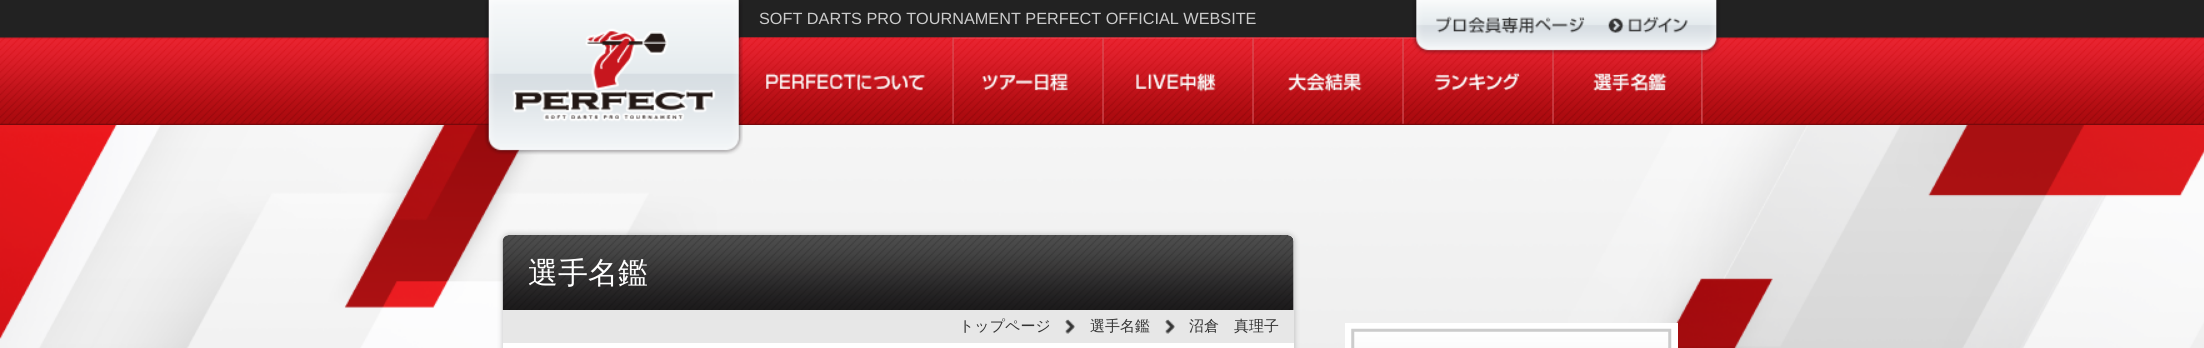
#include <cairo/cairo.h>
#include <math.h>
#include <stddef.h>

typedef struct { double x, y; const char *s; } line_t;
static cairo_t *cr;

static void rgb(unsigned color)
{
	cairo_set_source_rgb(cr, (color >> 16) / 255.0, (color >> 8 & 255) / 255.0, (color & 255) / 255.0);
}

static void rrect(double x, double y, double w, double h, double r)
{
	cairo_new_sub_path(cr);
	cairo_arc(cr, x + w - r, y + h - r, r, 0, M_PI / 2);
	cairo_arc(cr, x + r, y + h - r, r, M_PI / 2, M_PI);
	cairo_arc(cr, x + r, y + r, r, M_PI, 1.5 * M_PI);
	cairo_arc(cr, x + w - r, y + r, r, 1.5 * M_PI, 2 * M_PI);
	cairo_close_path(cr);
}

static void soft_shadow(double x, double y, double w, double h, double r, double blur, double alpha)
{
	cairo_push_group_with_content(cr, CAIRO_CONTENT_ALPHA);
	cairo_set_operator(cr, CAIRO_OPERATOR_SOURCE);
	for (int i = 15; i >= -15 && fmin(w, h) + blur * i / 3 > 0; i -= 2) {
		double e = blur * i / 6;
		cairo_set_source_rgba(cr, 0, 0, 0, alpha * erfc((i - 1) / 8.5) / 2);
		rrect(x - e, y - e, w + 2 * e, h + 2 * e, fmax(0, fmin(r + e + blur * .6, fmin(w, h) / 2 + e)));
		cairo_fill(cr);
	}
	cairo_pattern_t *soft = cairo_pop_group(cr);
	cairo_mask(cr, soft);
	cairo_pattern_destroy(soft);
}

static void image(const char *path, double x, double y, double w, double h)
{
	cairo_surface_t *image = cairo_image_surface_create_from_png(path);
	cairo_save(cr);
	cairo_set_source_surface(cr, image, x, y);
	cairo_rectangle(cr, x, y, w, h);
	cairo_fill(cr);
	cairo_restore(cr);
	cairo_surface_destroy(image);
}

int main(void) {
	cairo_surface_t *surface = cairo_image_surface_create(CAIRO_FORMAT_RGB24, 2204, 348);
	cr = cairo_create(surface);
	cairo_font_options_t *options = cairo_font_options_create();
	cairo_font_options_set_hint_metrics(options, CAIRO_HINT_METRICS_OFF);
	cairo_font_options_set_hint_style(options, CAIRO_HINT_STYLE_NONE);
	cairo_set_font_options(cr, options);
	cairo_set_miter_limit(cr, 4);
	rgb(0xffffff);
	cairo_paint(cr);
	image("img/1.png", 0, 125, 2204, 223);
	image("img/2.png", 0, 0, 2204, 125);
	image("img/5.png", 740, 37, 214, 87);
	image("img/3.png", 484, 0, 259, 155);
	image("img/6.png", 953, 37, 151, 87);
	image("img/7.png", 1103, 37, 151, 87);
	image("img/8.png", 1253, 37, 151, 87);
	image("img/9.png", 1403, 37, 151, 87);
	image("img/10.png", 1553, 49, 150, 75);
	image("img/4.png", 1412, 0, 309, 55);
	rgb(0x000000);
	soft_shadow(503, 235, 791, 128, 6, 3, 0.25);
	rgb(0xffffff);
	rrect(503, 235, 791, 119, 6);
	cairo_fill(cr);
	image("img/11.png", 502, 235, 792, 75);
	rgb(0xe7e7e7);
	cairo_rectangle(cr, 503, 310, 791, 33);
	cairo_fill(cr);
	image("img/12.png", 1065, 319, 10, 15);
	image("img/13.png", 1165, 319, 10, 15);
	rgb(0xffffff);
	cairo_rectangle(cr, 1345, 323, 333, 25);
	cairo_fill(cr);
	image("img/14.png", 1351, 328, 321, 20);
	cairo_select_font_face(cr, "Liberation Sans", CAIRO_FONT_SLANT_NORMAL, CAIRO_FONT_WEIGHT_NORMAL);
	cairo_set_font_size(cr, 16.25);
	rgb(0xcccccc);
	cairo_move_to(cr, 759, 24);
	cairo_show_text(cr, "SOFT DARTS PRO TOURNAMENT PERFECT OFFICIAL WEBSITE");
	cairo_select_font_face(cr, "WenQuanYi Zen Hei Medium", CAIRO_FONT_SLANT_NORMAL, CAIRO_FONT_WEIGHT_NORMAL);
	cairo_set_font_size(cr, 30);
	rgb(0xffffff);
	cairo_move_to(cr, 528, 283);
	cairo_show_text(cr, "選手名鑑");
	cairo_set_font_size(cr, 15);
	rgb(0x333333);
	{
		static const line_t items[] = {
			{959, 331, "トップページ"},
			{1090, 331, "選手名鑑"},
			{1189, 331, "沼倉　真理子"},
		};
		for (size_t i = 0; i < sizeof items / sizeof *items; i++) {
			cairo_move_to(cr, items[i].x, items[i].y);
			cairo_show_text(cr, items[i].s);
		}
	}
	cairo_surface_write_to_png(surface, "page.png");
	cairo_font_options_destroy(options);
	cairo_destroy(cr);
	cairo_surface_destroy(surface);
	return 0;
}
